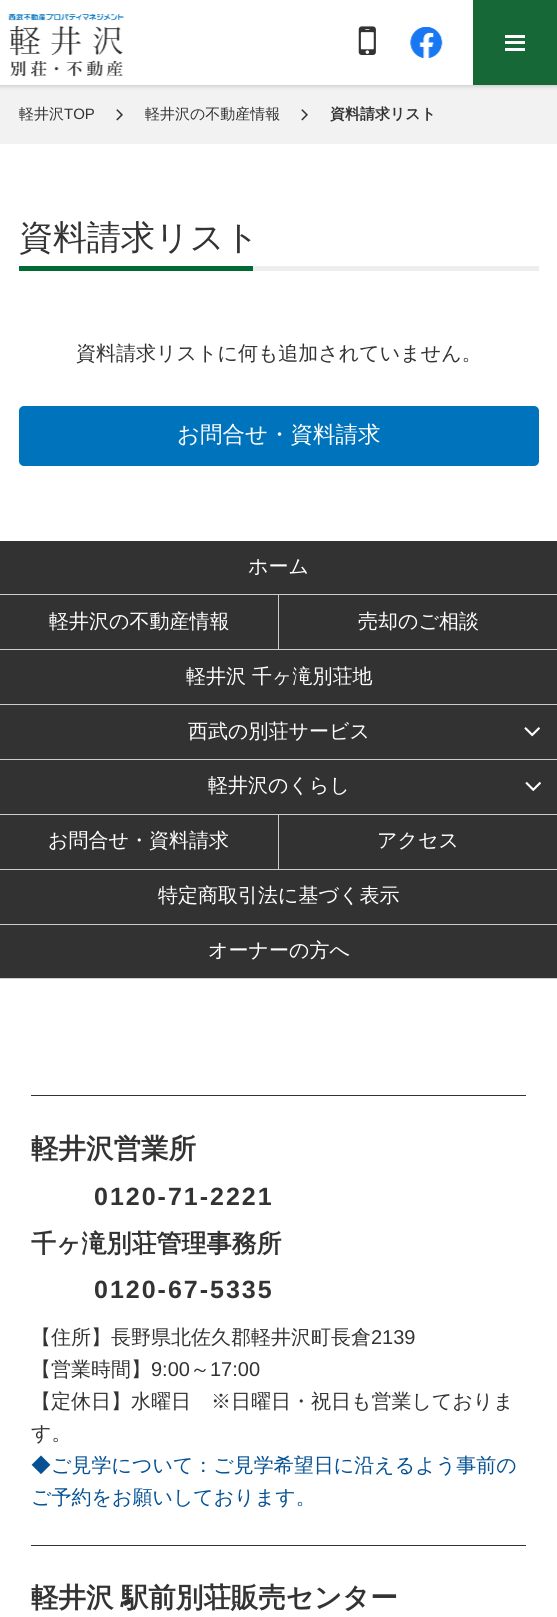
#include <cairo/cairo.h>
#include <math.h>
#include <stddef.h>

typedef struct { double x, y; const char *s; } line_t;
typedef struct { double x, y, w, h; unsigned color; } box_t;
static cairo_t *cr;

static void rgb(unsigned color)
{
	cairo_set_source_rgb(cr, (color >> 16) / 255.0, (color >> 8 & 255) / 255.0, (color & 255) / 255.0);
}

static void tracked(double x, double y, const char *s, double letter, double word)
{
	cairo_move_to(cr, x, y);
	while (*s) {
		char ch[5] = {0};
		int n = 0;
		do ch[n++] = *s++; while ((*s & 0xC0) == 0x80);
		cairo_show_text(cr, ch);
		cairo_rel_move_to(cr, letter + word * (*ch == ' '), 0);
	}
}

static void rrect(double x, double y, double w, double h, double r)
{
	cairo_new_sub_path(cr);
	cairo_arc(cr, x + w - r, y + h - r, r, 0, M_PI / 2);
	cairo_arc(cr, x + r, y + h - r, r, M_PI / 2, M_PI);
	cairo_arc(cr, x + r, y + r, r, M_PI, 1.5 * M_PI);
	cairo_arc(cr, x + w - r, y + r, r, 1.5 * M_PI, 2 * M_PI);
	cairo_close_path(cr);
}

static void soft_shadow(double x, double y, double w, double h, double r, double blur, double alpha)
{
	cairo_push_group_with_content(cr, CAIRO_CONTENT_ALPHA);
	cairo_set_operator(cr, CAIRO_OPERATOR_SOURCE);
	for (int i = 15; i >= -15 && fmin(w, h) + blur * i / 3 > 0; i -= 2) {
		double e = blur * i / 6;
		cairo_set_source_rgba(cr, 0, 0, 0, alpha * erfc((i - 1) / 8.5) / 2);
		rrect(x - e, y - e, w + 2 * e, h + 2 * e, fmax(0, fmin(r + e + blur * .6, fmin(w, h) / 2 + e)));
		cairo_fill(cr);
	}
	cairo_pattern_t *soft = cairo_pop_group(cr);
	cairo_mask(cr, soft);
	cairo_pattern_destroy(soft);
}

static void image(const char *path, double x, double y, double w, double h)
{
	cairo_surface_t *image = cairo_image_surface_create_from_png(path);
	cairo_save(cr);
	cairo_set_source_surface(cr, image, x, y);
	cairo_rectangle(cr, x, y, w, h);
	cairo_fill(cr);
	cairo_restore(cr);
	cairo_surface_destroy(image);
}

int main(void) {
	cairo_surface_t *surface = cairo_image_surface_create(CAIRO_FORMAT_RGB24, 557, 1617);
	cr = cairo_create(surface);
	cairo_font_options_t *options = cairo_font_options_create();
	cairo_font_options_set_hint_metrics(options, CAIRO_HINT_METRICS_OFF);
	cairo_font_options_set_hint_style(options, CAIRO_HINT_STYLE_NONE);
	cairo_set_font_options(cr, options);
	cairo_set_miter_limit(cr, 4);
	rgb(0xffffff);
	cairo_paint(cr);
	rgb(0xf2f2f2);
	cairo_rectangle(cr, 0, 85, 557, 59);
	cairo_fill(cr);
	rgb(0x000000);
	soft_shadow(0, 0, 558, 85, 0, 3, 0.25);
	rgb(0xffffff);
	cairo_rectangle(cr, 0, 0, 473, 85);
	cairo_fill(cr);
	image("img/1.png", 8, 14, 117, 63);
	image("img/2.png", 358, 26, 18, 29);
	image("img/3.png", 410, 27, 33, 31);
	{
		static const box_t items[] = {
			{473, 0, 84, 85, 0x166936},
			{505, 35, 20, 3, 0xffffff},
			{505, 41, 20, 3, 0xffffff},
			{505, 48, 20, 3, 0xffffff},
		};
		for (size_t i = 0; i < sizeof items / sizeof *items; i++) {
			rgb(items[i].color);
			cairo_rectangle(cr, items[i].x, items[i].y, items[i].w, items[i].h);
			cairo_fill(cr);
		}
	}
	image("img/4.png", 116, 109, 7, 12);
	image("img/4.png", 301, 109, 7, 12);
	rgb(0xeeeeee);
	cairo_rectangle(cr, 253, 266, 286, 5);
	cairo_fill(cr);
	rgb(0x006934);
	cairo_rectangle(cr, 19, 266, 234, 5);
	cairo_fill(cr);
	rgb(0x0073bd);
	rrect(19, 406, 520, 60, 5);
	cairo_fill(cr);
	{
		static const box_t items[] = {
			{0, 541, 557, 437, 0x323232},
			{0, 594, 557, 1, 0xcccccc},
			{278, 595, 1, 55, 0xcccccc},
			{0, 649, 557, 1, 0xcccccc},
			{0, 704, 557, 1, 0xcccccc},
			{0, 759, 557, 1, 0xcccccc},
		};
		for (size_t i = 0; i < sizeof items / sizeof *items; i++) {
			rgb(items[i].color);
			cairo_rectangle(cr, items[i].x, items[i].y, items[i].w, items[i].h);
			cairo_fill(cr);
		}
	}
	image("img/5.png", 524, 727, 16, 10);
	cairo_rectangle(cr, 0, 814, 557, 1);
	cairo_fill(cr);
	image("img/6.png", 525, 782, 16, 9);
	{
		static const box_t items[] = {
			{278, 815, 1, 55, 0xcccccc},
			{0, 869, 557, 1, 0xcccccc},
			{0, 924, 557, 1, 0xcccccc},
			{0, 978, 557, 1, 0xcccccc},
			{31, 1095, 495, 1, 0x323232},
			{31, 1545, 495, 1, 0x323232},
		};
		for (size_t i = 0; i < sizeof items / sizeof *items; i++) {
			rgb(items[i].color);
			cairo_rectangle(cr, items[i].x, items[i].y, items[i].w, items[i].h);
			cairo_fill(cr);
		}
	}
	cairo_select_font_face(cr, "WenQuanYi Zen Hei Medium", CAIRO_FONT_SLANT_NORMAL, CAIRO_FONT_WEIGHT_NORMAL);
	cairo_set_font_size(cr, 15);
	rgb(0x333333);
	cairo_move_to(cr, 19, 119);
	cairo_show_text(cr, "軽井沢");
	cairo_select_font_face(cr, "Liberation Sans", CAIRO_FONT_SLANT_NORMAL, CAIRO_FONT_WEIGHT_NORMAL);
	cairo_move_to(cr, 64, 119);
	cairo_show_text(cr, "TOP");
	cairo_select_font_face(cr, "WenQuanYi Zen Hei Medium", CAIRO_FONT_SLANT_NORMAL, CAIRO_FONT_WEIGHT_NORMAL);
	cairo_move_to(cr, 145, 119);
	cairo_show_text(cr, "軽井沢の不動産情報");
	cairo_select_font_face(cr, "WenQuanYi Zen Hei", CAIRO_FONT_SLANT_NORMAL, CAIRO_FONT_WEIGHT_BOLD);
	cairo_move_to(cr, 330, 119);
	cairo_show_text(cr, "資料請求リスト");
	cairo_select_font_face(cr, "WenQuanYi Zen Hei Medium", CAIRO_FONT_SLANT_NORMAL, CAIRO_FONT_WEIGHT_NORMAL);
	cairo_set_font_size(cr, 34);
	cairo_move_to(cr, 19, 249);
	cairo_show_text(cr, "資料請求リスト");
	cairo_set_font_size(cr, 20);
	cairo_move_to(cr, 76, 360);
	cairo_show_text(cr, "資料請求リストに何も追加されていません。");
	cairo_set_font_size(cr, 22.5);
	rgb(0xffffff);
	cairo_move_to(cr, 177, 442);
	cairo_show_text(cr, "お問合せ・資料請求");
	cairo_set_font_size(cr, 20);
	{
		static const line_t items[] = {
			{248, 573, "ホーム"},
			{49, 628, "軽井沢の不動産情報"},
			{358, 628, "売却のご相談"},
			{186, 683, "軽井沢 千ヶ滝別荘地"},
			{188, 738, "西武の別荘サービス"},
			{208, 792, "軽井沢のくらし"},
			{48, 847, "お問合せ・資料請求"},
			{377, 847, "アクセス"},
			{158, 902, "特定商取引法に基づく表示"},
			{208, 957, "オーナーの方へ"},
		};
		for (size_t i = 0; i < sizeof items / sizeof *items; i++) {
			cairo_move_to(cr, items[i].x, items[i].y);
			cairo_show_text(cr, items[i].s);
		}
	}
	cairo_select_font_face(cr, "WenQuanYi Zen Hei", CAIRO_FONT_SLANT_NORMAL, CAIRO_FONT_WEIGHT_BOLD);
	cairo_set_font_size(cr, 27.5);
	rgb(0x333333);
	cairo_move_to(cr, 31, 1158);
	cairo_show_text(cr, "軽井沢営業所");
	cairo_select_font_face(cr, "Liberation Sans", CAIRO_FONT_SLANT_NORMAL, CAIRO_FONT_WEIGHT_BOLD);
	cairo_set_font_size(cr, 25);
	tracked(94, 1205, "0120-71-2221", 2, 0);
	cairo_select_font_face(cr, "WenQuanYi Zen Hei", CAIRO_FONT_SLANT_NORMAL, CAIRO_FONT_WEIGHT_BOLD);
	cairo_move_to(cr, 31, 1252);
	cairo_show_text(cr, "千ヶ滝別荘管理事務所");
	cairo_select_font_face(cr, "Liberation Sans", CAIRO_FONT_SLANT_NORMAL, CAIRO_FONT_WEIGHT_BOLD);
	tracked(94, 1298, "0120-67-5335", 2, 0);
	cairo_select_font_face(cr, "WenQuanYi Zen Hei Medium", CAIRO_FONT_SLANT_NORMAL, CAIRO_FONT_WEIGHT_NORMAL);
	cairo_set_font_size(cr, 20);
	cairo_move_to(cr, 31, 1344);
	cairo_show_text(cr, "【住所】長野県北佐久郡軽井沢町長倉");
	cairo_select_font_face(cr, "Liberation Sans", CAIRO_FONT_SLANT_NORMAL, CAIRO_FONT_WEIGHT_NORMAL);
	cairo_move_to(cr, 371, 1344);
	cairo_show_text(cr, "2139");
	cairo_select_font_face(cr, "WenQuanYi Zen Hei Medium", CAIRO_FONT_SLANT_NORMAL, CAIRO_FONT_WEIGHT_NORMAL);
	cairo_move_to(cr, 31, 1376);
	cairo_show_text(cr, "【営業時間】");
	cairo_select_font_face(cr, "Liberation Sans", CAIRO_FONT_SLANT_NORMAL, CAIRO_FONT_WEIGHT_NORMAL);
	cairo_move_to(cr, 151, 1376);
	cairo_show_text(cr, "9:00");
	cairo_select_font_face(cr, "WenQuanYi Zen Hei Medium", CAIRO_FONT_SLANT_NORMAL, CAIRO_FONT_WEIGHT_NORMAL);
	cairo_move_to(cr, 190, 1376);
	cairo_show_text(cr, "～");
	cairo_select_font_face(cr, "Liberation Sans", CAIRO_FONT_SLANT_NORMAL, CAIRO_FONT_WEIGHT_NORMAL);
	cairo_move_to(cr, 210, 1376);
	cairo_show_text(cr, "17:00");
	cairo_select_font_face(cr, "WenQuanYi Zen Hei Medium", CAIRO_FONT_SLANT_NORMAL, CAIRO_FONT_WEIGHT_NORMAL);
	cairo_move_to(cr, 31, 1408);
	cairo_show_text(cr, "【定休日】水曜日　※日曜日・祝日も営業しておりま");
	cairo_move_to(cr, 31, 1440);
	cairo_show_text(cr, "す。");
	rgb(0x055193);
	cairo_move_to(cr, 31, 1472);
	cairo_show_text(cr, "◆ご見学について：ご見学希望日に沿えるよう事前の");
	cairo_move_to(cr, 31, 1504);
	cairo_show_text(cr, "ご予約をお願いしております。");
	cairo_select_font_face(cr, "WenQuanYi Zen Hei", CAIRO_FONT_SLANT_NORMAL, CAIRO_FONT_WEIGHT_BOLD);
	cairo_set_font_size(cr, 27.5);
	rgb(0x333333);
	tracked(31, 1607, "軽井沢 駅前別荘販売センター", 0, -1);
	cairo_surface_write_to_png(surface, "page.png");
	cairo_font_options_destroy(options);
	cairo_destroy(cr);
	cairo_surface_destroy(surface);
	return 0;
}
